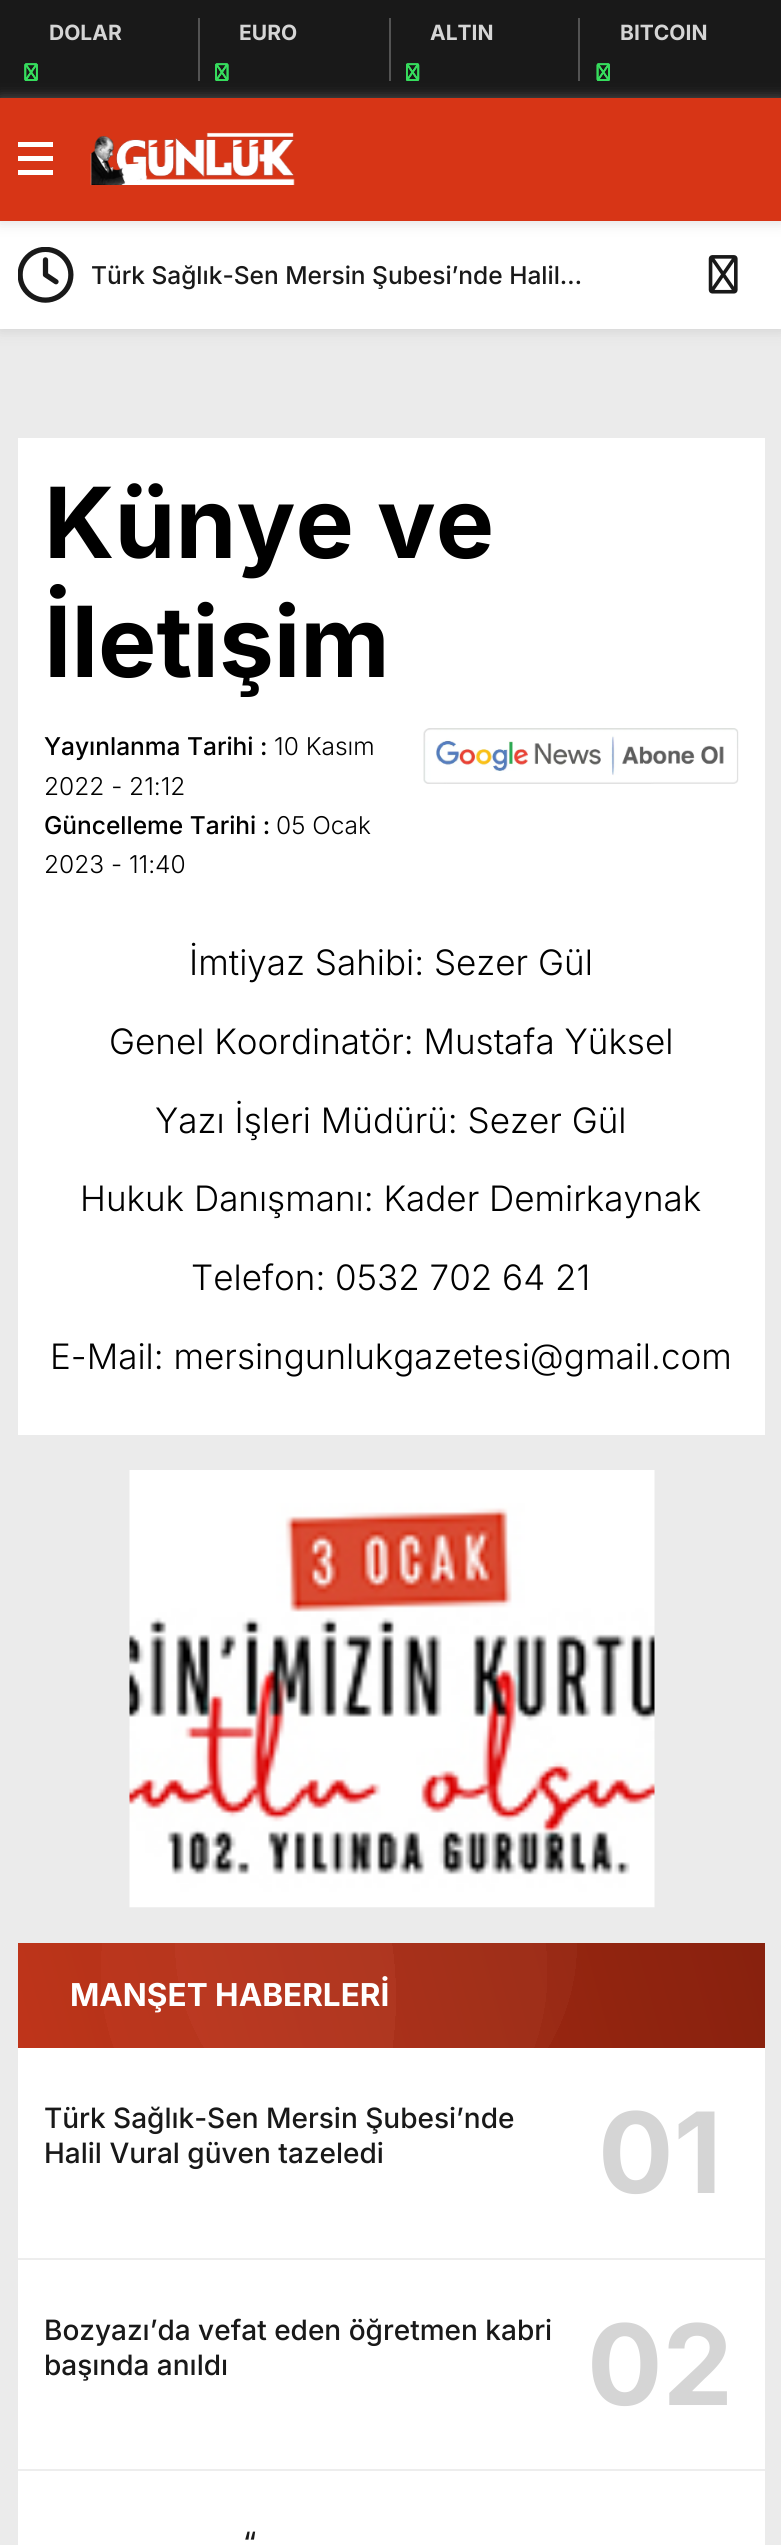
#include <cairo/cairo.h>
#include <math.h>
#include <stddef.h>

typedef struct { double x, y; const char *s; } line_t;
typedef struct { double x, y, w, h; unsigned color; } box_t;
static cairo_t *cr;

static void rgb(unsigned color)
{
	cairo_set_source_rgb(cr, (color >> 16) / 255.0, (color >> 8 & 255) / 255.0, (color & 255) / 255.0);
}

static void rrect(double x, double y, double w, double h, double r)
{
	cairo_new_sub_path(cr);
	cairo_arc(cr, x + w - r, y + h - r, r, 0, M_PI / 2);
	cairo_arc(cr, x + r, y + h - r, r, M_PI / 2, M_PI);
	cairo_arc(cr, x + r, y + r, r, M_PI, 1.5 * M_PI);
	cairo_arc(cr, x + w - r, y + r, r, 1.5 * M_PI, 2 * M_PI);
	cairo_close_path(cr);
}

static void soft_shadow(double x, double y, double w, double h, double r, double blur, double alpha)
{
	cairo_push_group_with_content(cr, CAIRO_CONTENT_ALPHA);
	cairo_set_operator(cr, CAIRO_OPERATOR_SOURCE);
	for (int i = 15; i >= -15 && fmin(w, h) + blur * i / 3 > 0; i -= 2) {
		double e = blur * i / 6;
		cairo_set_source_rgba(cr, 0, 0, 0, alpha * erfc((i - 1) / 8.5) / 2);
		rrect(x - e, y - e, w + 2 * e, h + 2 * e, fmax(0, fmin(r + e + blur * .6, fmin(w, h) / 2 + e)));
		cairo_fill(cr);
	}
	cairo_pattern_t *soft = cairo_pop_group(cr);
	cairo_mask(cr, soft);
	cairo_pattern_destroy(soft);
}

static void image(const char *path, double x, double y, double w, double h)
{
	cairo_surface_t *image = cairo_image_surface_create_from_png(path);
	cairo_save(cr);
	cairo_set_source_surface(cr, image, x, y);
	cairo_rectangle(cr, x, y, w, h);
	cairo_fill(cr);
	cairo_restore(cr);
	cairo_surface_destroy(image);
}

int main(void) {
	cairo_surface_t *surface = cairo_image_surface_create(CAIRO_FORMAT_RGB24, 781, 2545);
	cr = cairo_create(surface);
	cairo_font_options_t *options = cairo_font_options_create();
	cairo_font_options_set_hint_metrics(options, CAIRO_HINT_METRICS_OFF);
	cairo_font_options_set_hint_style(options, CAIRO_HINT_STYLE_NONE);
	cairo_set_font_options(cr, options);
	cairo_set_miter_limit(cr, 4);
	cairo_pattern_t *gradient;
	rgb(0xebebeb);
	cairo_paint(cr);
	rgb(0x191919);
	cairo_rectangle(cr, 0, 0, 781, 98);
	cairo_fill(cr);
	rgb(0x535353);
	cairo_rectangle(cr, 198, 18, 2, 63);
	cairo_fill(cr);
	image("img/1.png", 24, 63, 14, 18);
	image("img/2.png", 24, 63, 14, 18);
	image("img/3.png", 24, 63, 14, 18);
	cairo_rectangle(cr, 389, 18, 2, 63);
	cairo_fill(cr);
	image("img/4.png", 215, 63, 14, 18);
	image("img/5.png", 215, 63, 14, 18);
	image("img/6.png", 215, 63, 14, 18);
	cairo_rectangle(cr, 578, 18, 2, 63);
	cairo_fill(cr);
	image("img/7.png", 406, 63, 14, 18);
	image("img/8.png", 406, 63, 14, 18);
	image("img/9.png", 406, 63, 14, 18);
	image("img/10.png", 596, 63, 14, 18);
	image("img/11.png", 596, 63, 14, 18);
	image("img/12.png", 596, 63, 14, 18);
	rgb(0xbababa);
	soft_shadow(0, 222, 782, 109, 0, 7, 0.5);
	rgb(0xffffff);
	cairo_rectangle(cr, 0, 221, 781, 108);
	cairo_fill(cr);
	rgb(0xbababa);
	soft_shadow(0, 100, 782, 122, 0, 7, 0.5);
	{
		static const box_t items[] = {
			{0, 98, 781, 123, 0xd73516},
			{18, 156, 35, 5, 0xffffff},
			{18, 142, 35, 5, 0xffffff},
			{18, 170, 35, 5, 0xffffff},
		};
		for (size_t i = 0; i < sizeof items / sizeof *items; i++) {
			rgb(items[i].color);
			cairo_rectangle(cr, items[i].x, items[i].y, items[i].w, items[i].h);
			cairo_fill(cr);
		}
	}
	image("img/13.png", 90, 132, 205, 53);
	image("img/14.png", 18, 247, 56, 56);
	image("img/15.png", 708, 255, 30, 39);
	cairo_rectangle(cr, 18, 438, 747, 997);
	cairo_fill(cr);
	image("img/16.png", 423, 728, 316, 56);
	image("img/17.png", 129, 1470, 526, 438);
	cairo_rectangle(cr, 18, 2048, 747, 497);
	cairo_fill(cr);
	gradient = cairo_pattern_create_linear(753, 1898, 29, 2092);
	cairo_pattern_add_color_stop_rgba(gradient, 0, 0.616, 0.149, 0.063, 1);
	cairo_pattern_add_color_stop_rgba(gradient, 1, 0.843, 0.208, 0.086, 1);
	cairo_set_source(cr, gradient);
	cairo_pattern_destroy(gradient);
	cairo_rectangle(cr, 18, 1943, 747, 105);
	cairo_fill(cr);
	gradient = cairo_pattern_create_radial(376, 1944, 0, 376, 1944, 402);
	cairo_pattern_add_color_stop_rgba(gradient, 0, 0.365, 0.365, 0.365, 0.05);
	cairo_pattern_add_color_stop_rgba(gradient, 0.5, 0.365, 0.365, 0.365, 0.05);
	cairo_pattern_add_color_stop_rgba(gradient, 0.5, 0.027, 0.027, 0.027, 0.05);
	cairo_pattern_add_color_stop_rgba(gradient, 1, 0.027, 0.027, 0.027, 0.05);
	cairo_set_source(cr, gradient);
	cairo_pattern_destroy(gradient);
	cairo_rectangle(cr, 18, 1943, 747, 105);
	cairo_fill(cr);
	gradient = cairo_pattern_create_radial(324, 1972, 0, 324, 1972, 447);
	cairo_pattern_add_color_stop_rgba(gradient, 0, 0.318, 0.318, 0.318, 0.05);
	cairo_pattern_add_color_stop_rgba(gradient, 0.5, 0.318, 0.318, 0.318, 0.05);
	cairo_pattern_add_color_stop_rgba(gradient, 0.5, 0.027, 0.027, 0.027, 0.05);
	cairo_pattern_add_color_stop_rgba(gradient, 1, 0.027, 0.027, 0.027, 0.05);
	cairo_set_source(cr, gradient);
	cairo_pattern_destroy(gradient);
	cairo_rectangle(cr, 18, 1943, 747, 105);
	cairo_fill(cr);
	gradient = cairo_pattern_create_radial(25, 1997, 0, 25, 1997, 742);
	cairo_pattern_add_color_stop_rgba(gradient, 0, 0.545, 0.545, 0.545, 0.05);
	cairo_pattern_add_color_stop_rgba(gradient, 0.5, 0.545, 0.545, 0.545, 0.05);
	cairo_pattern_add_color_stop_rgba(gradient, 0.5, 0.082, 0.082, 0.082, 0.05);
	cairo_pattern_add_color_stop_rgba(gradient, 1, 0.082, 0.082, 0.082, 0.05);
	cairo_set_source(cr, gradient);
	cairo_pattern_destroy(gradient);
	cairo_rectangle(cr, 18, 1943, 747, 105);
	cairo_fill(cr);
	rgb(0xededed);
	cairo_rectangle(cr, 18, 2258, 747, 2);
	cairo_fill(cr);
	cairo_rectangle(cr, 18, 2469, 747, 2);
	cairo_fill(cr);
	cairo_select_font_face(cr, "Inter", CAIRO_FONT_SLANT_NORMAL, CAIRO_FONT_WEIGHT_BOLD);
	cairo_set_font_size(cr, 21);
	rgb(0xd5d5d5);
	{
		static const line_t items[] = {
			{49, 40, "DOLAR"},
			{239, 40, "EURO"},
			{430, 40, "ALTIN"},
			{620, 40, "BITCOIN"},
		};
		for (size_t i = 0; i < sizeof items / sizeof *items; i++) {
			cairo_move_to(cr, items[i].x, items[i].y);
			cairo_show_text(cr, items[i].s);
		}
	}
	cairo_select_font_face(cr, "Inter Medium", CAIRO_FONT_SLANT_NORMAL, CAIRO_FONT_WEIGHT_NORMAL);
	cairo_set_font_size(cr, 24.5);
	rgb(0x191919);
	cairo_move_to(cr, 91, 284);
	cairo_show_text(cr, "Türk Sağlık-Sen Mersin Şubesi’nde Halil…");
	cairo_select_font_face(cr, "Inter", CAIRO_FONT_SLANT_NORMAL, CAIRO_FONT_WEIGHT_BOLD);
	cairo_set_font_size(cr, 98);
	rgb(0x000000);
	cairo_move_to(cr, 44, 558);
	cairo_show_text(cr, "Künye ve");
	cairo_move_to(cr, 44, 677);
	cairo_show_text(cr, "İletişim");
	cairo_select_font_face(cr, "Inter Medium", CAIRO_FONT_SLANT_NORMAL, CAIRO_FONT_WEIGHT_NORMAL);
	cairo_set_font_size(cr, 24.5);
	cairo_move_to(cr, 44, 755);
	cairo_show_text(cr, "Yayınlanma Tarihi :");
	cairo_select_font_face(cr, "Inter Light", CAIRO_FONT_SLANT_NORMAL, CAIRO_FONT_WEIGHT_NORMAL);
	cairo_move_to(cr, 274, 755);
	cairo_show_text(cr, "10 Kasım");
	cairo_move_to(cr, 44, 795);
	cairo_show_text(cr, "2022 - 21:12");
	cairo_select_font_face(cr, "Inter Medium", CAIRO_FONT_SLANT_NORMAL, CAIRO_FONT_WEIGHT_NORMAL);
	cairo_move_to(cr, 44, 834);
	cairo_show_text(cr, "Güncelleme Tarihi :");
	cairo_select_font_face(cr, "Inter Light", CAIRO_FONT_SLANT_NORMAL, CAIRO_FONT_WEIGHT_NORMAL);
	cairo_move_to(cr, 276, 834);
	cairo_show_text(cr, "05 Ocak");
	cairo_move_to(cr, 44, 873);
	cairo_show_text(cr, "2023 - 11:40");
	cairo_set_font_size(cr, 35);
	{
		static const line_t items[] = {
			{189, 975, "İmtiyaz Sahibi: Sezer Gül"},
			{109, 1054, "Genel Koordinatör: Mustafa Yüksel"},
			{155, 1133, "Yazı İşleri Müdürü: Sezer Gül"},
			{80, 1211, "Hukuk Danışmanı: Kader Demirkaynak"},
			{191, 1290, "Telefon: 0532 702 64 21"},
			{50, 1369, "E-Mail: mersingunlukgazetesi@gmail.com"},
		};
		for (size_t i = 0; i < sizeof items / sizeof *items; i++) {
			cairo_move_to(cr, items[i].x, items[i].y);
			cairo_show_text(cr, items[i].s);
		}
	}
	cairo_select_font_face(cr, "Inter", CAIRO_FONT_SLANT_NORMAL, CAIRO_FONT_WEIGHT_BOLD);
	cairo_set_font_size(cr, 31.5);
	rgb(0xffffff);
	cairo_move_to(cr, 70, 2006);
	cairo_show_text(cr, "MANŞET HABERLERİ");
	cairo_select_font_face(cr, "Inter Medium", CAIRO_FONT_SLANT_NORMAL, CAIRO_FONT_WEIGHT_NORMAL);
	cairo_set_font_size(cr, 28);
	rgb(0x191919);
	cairo_move_to(cr, 44, 2128);
	cairo_show_text(cr, "Türk Sağlık-Sen Mersin Şubesi’nde");
	cairo_move_to(cr, 44, 2163);
	cairo_show_text(cr, "Halil Vural güven tazeledi");
	cairo_select_font_face(cr, "Inter", CAIRO_FONT_SLANT_NORMAL, CAIRO_FONT_WEIGHT_BOLD);
	cairo_set_font_size(cr, 112);
	rgb(0xd5d5d5);
	cairo_move_to(cr, 598, 2193);
	cairo_show_text(cr, "01");
	cairo_select_font_face(cr, "Inter Medium", CAIRO_FONT_SLANT_NORMAL, CAIRO_FONT_WEIGHT_NORMAL);
	cairo_set_font_size(cr, 28);
	rgb(0x191919);
	cairo_move_to(cr, 44, 2340);
	cairo_show_text(cr, "Bozyazı’da vefat eden öğretmen kabri");
	cairo_move_to(cr, 44, 2375);
	cairo_show_text(cr, "başında anıldı");
	cairo_select_font_face(cr, "Inter", CAIRO_FONT_SLANT_NORMAL, CAIRO_FONT_WEIGHT_BOLD);
	cairo_set_font_size(cr, 112);
	rgb(0xd5d5d5);
	cairo_move_to(cr, 587, 2405);
	cairo_show_text(cr, "02");
	cairo_select_font_face(cr, "Inter Medium", CAIRO_FONT_SLANT_NORMAL, CAIRO_FONT_WEIGHT_NORMAL);
	cairo_set_font_size(cr, 28);
	rgb(0x191919);
	cairo_move_to(cr, 243, 2552);
	cairo_show_text(cr, "“");
	cairo_surface_write_to_png(surface, "page.png");
	cairo_font_options_destroy(options);
	cairo_destroy(cr);
	cairo_surface_destroy(surface);
	return 0;
}
